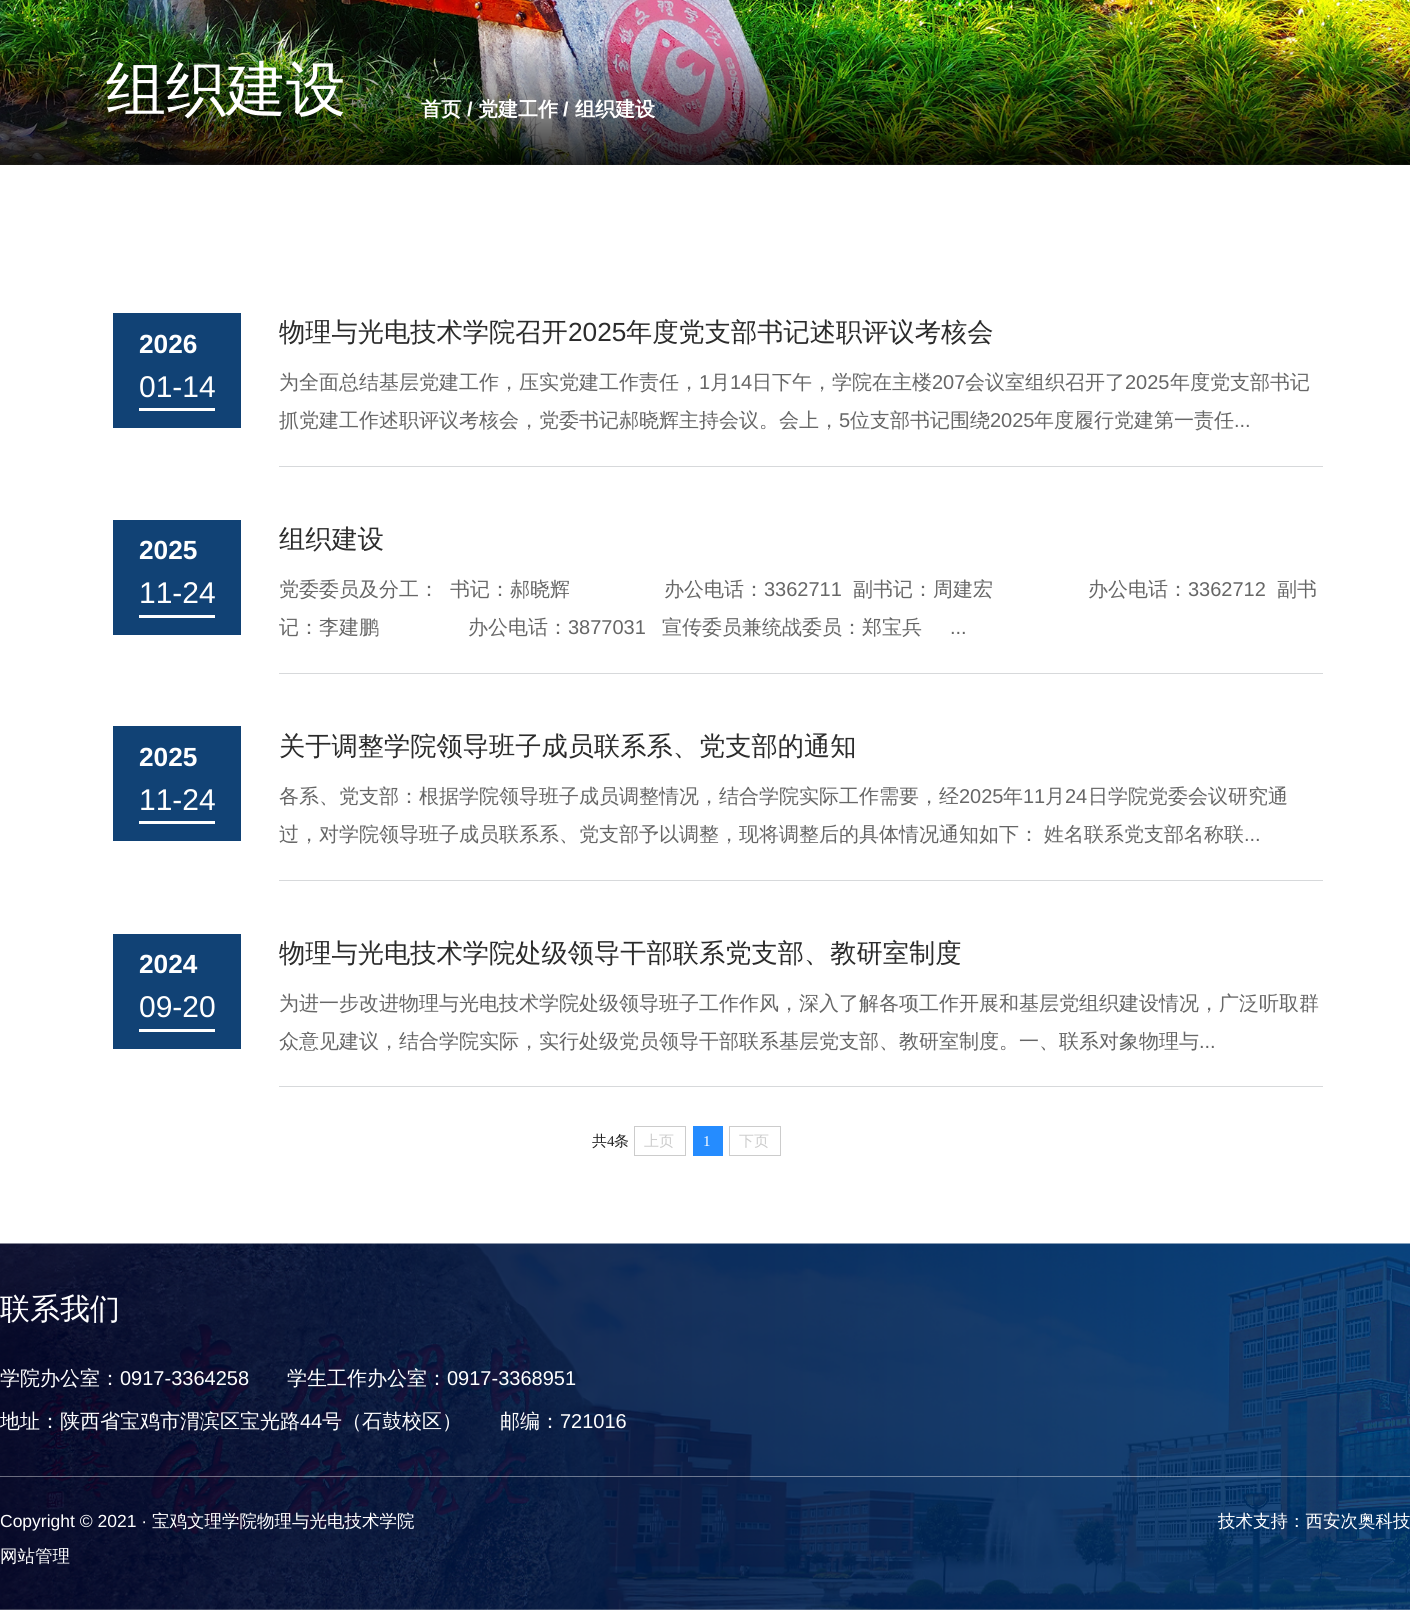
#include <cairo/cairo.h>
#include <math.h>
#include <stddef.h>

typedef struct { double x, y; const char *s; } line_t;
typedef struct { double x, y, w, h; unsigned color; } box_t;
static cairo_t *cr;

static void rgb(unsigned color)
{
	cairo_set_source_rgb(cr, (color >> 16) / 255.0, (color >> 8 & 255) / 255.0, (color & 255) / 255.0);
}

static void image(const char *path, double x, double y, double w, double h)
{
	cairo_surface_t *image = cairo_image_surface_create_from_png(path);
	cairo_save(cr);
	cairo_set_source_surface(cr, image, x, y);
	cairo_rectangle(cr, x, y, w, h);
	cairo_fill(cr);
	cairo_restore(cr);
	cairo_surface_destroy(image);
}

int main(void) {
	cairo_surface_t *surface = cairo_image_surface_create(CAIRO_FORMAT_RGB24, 1410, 1610);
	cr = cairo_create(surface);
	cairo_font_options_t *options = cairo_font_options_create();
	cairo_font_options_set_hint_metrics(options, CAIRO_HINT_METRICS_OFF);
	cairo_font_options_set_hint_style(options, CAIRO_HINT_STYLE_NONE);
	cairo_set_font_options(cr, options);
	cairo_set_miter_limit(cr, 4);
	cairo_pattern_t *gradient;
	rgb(0xffffff);
	cairo_paint(cr);
	image("img/1.png", 0, 0, 1410, 165);
	gradient = cairo_pattern_create_linear(705, 165, 705, 41);
	cairo_pattern_add_color_stop_rgba(gradient, 0, 0, 0, 0, 0.83);
	cairo_pattern_add_color_stop_rgba(gradient, 1, 0, 0, 0, 0);
	cairo_set_source(cr, gradient);
	cairo_pattern_destroy(gradient);
	cairo_rectangle(cr, 0, 44, 1410, 121);
	cairo_fill(cr);
	{
		static const box_t items[] = {
			{113, 313, 128, 115, 0x114275},
			{139, 408, 76, 3, 0xffffff},
			{279, 466, 1044, 1, 0xd7d9db},
			{113, 520, 128, 115, 0x114275},
			{139, 615, 76, 3, 0xffffff},
			{279, 673, 1044, 1, 0xd7d9db},
			{113, 726, 128, 115, 0x114275},
			{139, 821, 76, 3, 0xffffff},
			{279, 880, 1044, 1, 0xd7d9db},
			{113, 934, 128, 115, 0x114275},
			{139, 1029, 76, 3, 0xffffff},
			{279, 1086, 1044, 1, 0xd7d9db},
		};
		for (size_t i = 0; i < sizeof items / sizeof *items; i++) {
			rgb(items[i].color);
			cairo_rectangle(cr, items[i].x, items[i].y, items[i].w, items[i].h);
			cairo_fill(cr);
		}
	}
	cairo_rectangle(cr, 634.5, 1126.5, 51, 29);
	rgb(0xcccccc);
	cairo_set_line_width(cr, 1);
	cairo_stroke(cr);
	rgb(0x258cff);
	cairo_rectangle(cr, 693, 1126, 30, 30);
	cairo_fill(cr);
	cairo_rectangle(cr, 729.5, 1126.5, 51, 29);
	rgb(0xcccccc);
	cairo_stroke(cr);
	image("img/2.png", 0, 1243, 1410, 367);
	cairo_set_source_rgba(cr, 1, 1, 1, 0.4);
	cairo_rectangle(cr, 0, 1476, 1410, 1);
	cairo_fill(cr);
	cairo_select_font_face(cr, "WenQuanYi Zen Hei Medium", CAIRO_FONT_SLANT_NORMAL, CAIRO_FONT_WEIGHT_NORMAL);
	cairo_set_font_size(cr, 60);
	rgb(0xffffff);
	cairo_move_to(cr, 106, 110);
	cairo_show_text(cr, "组织建设");
	cairo_select_font_face(cr, "WenQuanYi Zen Hei", CAIRO_FONT_SLANT_NORMAL, CAIRO_FONT_WEIGHT_BOLD);
	cairo_set_font_size(cr, 20);
	cairo_move_to(cr, 421, 116);
	cairo_show_text(cr, "首页");
	cairo_select_font_face(cr, "Liberation Sans", CAIRO_FONT_SLANT_NORMAL, CAIRO_FONT_WEIGHT_BOLD);
	cairo_move_to(cr, 467, 116);
	cairo_show_text(cr, "/");
	cairo_select_font_face(cr, "WenQuanYi Zen Hei", CAIRO_FONT_SLANT_NORMAL, CAIRO_FONT_WEIGHT_BOLD);
	cairo_move_to(cr, 478, 116);
	cairo_show_text(cr, "党建工作");
	cairo_select_font_face(cr, "Liberation Sans", CAIRO_FONT_SLANT_NORMAL, CAIRO_FONT_WEIGHT_BOLD);
	cairo_move_to(cr, 563, 116);
	cairo_show_text(cr, "/");
	cairo_select_font_face(cr, "WenQuanYi Zen Hei", CAIRO_FONT_SLANT_NORMAL, CAIRO_FONT_WEIGHT_BOLD);
	cairo_move_to(cr, 575, 116);
	cairo_show_text(cr, "组织建设");
	cairo_select_font_face(cr, "Liberation Sans", CAIRO_FONT_SLANT_NORMAL, CAIRO_FONT_WEIGHT_BOLD);
	cairo_set_font_size(cr, 26.25);
	cairo_move_to(cr, 139, 353);
	cairo_show_text(cr, "2026");
	cairo_select_font_face(cr, "Liberation Sans", CAIRO_FONT_SLANT_NORMAL, CAIRO_FONT_WEIGHT_NORMAL);
	cairo_set_font_size(cr, 30);
	cairo_move_to(cr, 139, 397);
	cairo_show_text(cr, "01-14");
	cairo_select_font_face(cr, "WenQuanYi Zen Hei Medium", CAIRO_FONT_SLANT_NORMAL, CAIRO_FONT_WEIGHT_NORMAL);
	cairo_set_font_size(cr, 26.25);
	rgb(0x2b2b2b);
	cairo_move_to(cr, 279, 341);
	cairo_show_text(cr, "物理与光电技术学院召开");
	cairo_select_font_face(cr, "Liberation Sans", CAIRO_FONT_SLANT_NORMAL, CAIRO_FONT_WEIGHT_NORMAL);
	cairo_move_to(cr, 568, 341);
	cairo_show_text(cr, "2025");
	cairo_select_font_face(cr, "WenQuanYi Zen Hei Medium", CAIRO_FONT_SLANT_NORMAL, CAIRO_FONT_WEIGHT_NORMAL);
	cairo_move_to(cr, 626, 341);
	cairo_show_text(cr, "年度党支部书记述职评议考核会");
	cairo_set_font_size(cr, 20);
	rgb(0x666666);
	cairo_move_to(cr, 279, 389);
	cairo_show_text(cr, "为全面总结基层党建工作，压实党建工作责任，");
	cairo_select_font_face(cr, "Liberation Sans", CAIRO_FONT_SLANT_NORMAL, CAIRO_FONT_WEIGHT_NORMAL);
	cairo_move_to(cr, 699, 389);
	cairo_show_text(cr, "1");
	cairo_select_font_face(cr, "WenQuanYi Zen Hei Medium", CAIRO_FONT_SLANT_NORMAL, CAIRO_FONT_WEIGHT_NORMAL);
	cairo_move_to(cr, 710, 389);
	cairo_show_text(cr, "月");
	cairo_select_font_face(cr, "Liberation Sans", CAIRO_FONT_SLANT_NORMAL, CAIRO_FONT_WEIGHT_NORMAL);
	cairo_move_to(cr, 730, 389);
	cairo_show_text(cr, "14");
	cairo_select_font_face(cr, "WenQuanYi Zen Hei Medium", CAIRO_FONT_SLANT_NORMAL, CAIRO_FONT_WEIGHT_NORMAL);
	cairo_move_to(cr, 752, 389);
	cairo_show_text(cr, "日下午，学院在主楼");
	cairo_select_font_face(cr, "Liberation Sans", CAIRO_FONT_SLANT_NORMAL, CAIRO_FONT_WEIGHT_NORMAL);
	cairo_move_to(cr, 932, 389);
	cairo_show_text(cr, "207");
	cairo_select_font_face(cr, "WenQuanYi Zen Hei Medium", CAIRO_FONT_SLANT_NORMAL, CAIRO_FONT_WEIGHT_NORMAL);
	cairo_move_to(cr, 965, 389);
	cairo_show_text(cr, "会议室组织召开了");
	cairo_select_font_face(cr, "Liberation Sans", CAIRO_FONT_SLANT_NORMAL, CAIRO_FONT_WEIGHT_NORMAL);
	cairo_move_to(cr, 1125, 389);
	cairo_show_text(cr, "2025");
	cairo_select_font_face(cr, "WenQuanYi Zen Hei Medium", CAIRO_FONT_SLANT_NORMAL, CAIRO_FONT_WEIGHT_NORMAL);
	cairo_move_to(cr, 1170, 389);
	cairo_show_text(cr, "年度党支部书记");
	cairo_move_to(cr, 279, 427);
	cairo_show_text(cr, "抓党建工作述职评议考核会，党委书记郝晓辉主持会议。会上，");
	cairo_select_font_face(cr, "Liberation Sans", CAIRO_FONT_SLANT_NORMAL, CAIRO_FONT_WEIGHT_NORMAL);
	cairo_move_to(cr, 839, 427);
	cairo_show_text(cr, "5");
	cairo_select_font_face(cr, "WenQuanYi Zen Hei Medium", CAIRO_FONT_SLANT_NORMAL, CAIRO_FONT_WEIGHT_NORMAL);
	cairo_move_to(cr, 850, 427);
	cairo_show_text(cr, "位支部书记围绕");
	cairo_select_font_face(cr, "Liberation Sans", CAIRO_FONT_SLANT_NORMAL, CAIRO_FONT_WEIGHT_NORMAL);
	cairo_move_to(cr, 990, 427);
	cairo_show_text(cr, "2025");
	cairo_select_font_face(cr, "WenQuanYi Zen Hei Medium", CAIRO_FONT_SLANT_NORMAL, CAIRO_FONT_WEIGHT_NORMAL);
	cairo_move_to(cr, 1034, 427);
	cairo_show_text(cr, "年度履行党建第一责任");
	cairo_select_font_face(cr, "Liberation Sans", CAIRO_FONT_SLANT_NORMAL, CAIRO_FONT_WEIGHT_NORMAL);
	cairo_move_to(cr, 1234, 427);
	cairo_show_text(cr, "...");
	cairo_select_font_face(cr, "Liberation Sans", CAIRO_FONT_SLANT_NORMAL, CAIRO_FONT_WEIGHT_BOLD);
	cairo_set_font_size(cr, 26.25);
	rgb(0xffffff);
	cairo_move_to(cr, 139, 559);
	cairo_show_text(cr, "2025");
	cairo_select_font_face(cr, "Liberation Sans", CAIRO_FONT_SLANT_NORMAL, CAIRO_FONT_WEIGHT_NORMAL);
	cairo_set_font_size(cr, 30);
	cairo_move_to(cr, 139, 603);
	cairo_show_text(cr, "11-24");
	cairo_select_font_face(cr, "WenQuanYi Zen Hei Medium", CAIRO_FONT_SLANT_NORMAL, CAIRO_FONT_WEIGHT_NORMAL);
	cairo_set_font_size(cr, 26.25);
	rgb(0x2b2b2b);
	cairo_move_to(cr, 279, 548);
	cairo_show_text(cr, "组织建设");
	cairo_set_font_size(cr, 20);
	rgb(0x666666);
	{
		static const line_t items[] = {
			{279, 596, "党委委员及分工："},
			{450, 596, "书记：郝晓辉"},
			{664, 596, "办公电话："},
		};
		for (size_t i = 0; i < sizeof items / sizeof *items; i++) {
			cairo_move_to(cr, items[i].x, items[i].y);
			cairo_show_text(cr, items[i].s);
		}
	}
	cairo_select_font_face(cr, "Liberation Sans", CAIRO_FONT_SLANT_NORMAL, CAIRO_FONT_WEIGHT_NORMAL);
	cairo_move_to(cr, 764, 596);
	cairo_show_text(cr, "3362711");
	cairo_select_font_face(cr, "WenQuanYi Zen Hei Medium", CAIRO_FONT_SLANT_NORMAL, CAIRO_FONT_WEIGHT_NORMAL);
	cairo_move_to(cr, 853, 596);
	cairo_show_text(cr, "副书记：周建宏");
	cairo_move_to(cr, 1088, 596);
	cairo_show_text(cr, "办公电话：");
	cairo_select_font_face(cr, "Liberation Sans", CAIRO_FONT_SLANT_NORMAL, CAIRO_FONT_WEIGHT_NORMAL);
	cairo_move_to(cr, 1188, 596);
	cairo_show_text(cr, "3362712");
	cairo_select_font_face(cr, "WenQuanYi Zen Hei Medium", CAIRO_FONT_SLANT_NORMAL, CAIRO_FONT_WEIGHT_NORMAL);
	{
		static const line_t items[] = {
			{1277, 596, "副书"},
			{279, 634, "记：李建鹏"},
			{468, 634, "办公电话："},
		};
		for (size_t i = 0; i < sizeof items / sizeof *items; i++) {
			cairo_move_to(cr, items[i].x, items[i].y);
			cairo_show_text(cr, items[i].s);
		}
	}
	cairo_select_font_face(cr, "Liberation Sans", CAIRO_FONT_SLANT_NORMAL, CAIRO_FONT_WEIGHT_NORMAL);
	cairo_move_to(cr, 568, 634);
	cairo_show_text(cr, "3877031");
	cairo_select_font_face(cr, "WenQuanYi Zen Hei Medium", CAIRO_FONT_SLANT_NORMAL, CAIRO_FONT_WEIGHT_NORMAL);
	cairo_move_to(cr, 662, 634);
	cairo_show_text(cr, "宣传委员兼统战委员：郑宝兵");
	cairo_select_font_face(cr, "Liberation Sans", CAIRO_FONT_SLANT_NORMAL, CAIRO_FONT_WEIGHT_NORMAL);
	cairo_move_to(cr, 950, 634);
	cairo_show_text(cr, "...");
	cairo_select_font_face(cr, "Liberation Sans", CAIRO_FONT_SLANT_NORMAL, CAIRO_FONT_WEIGHT_BOLD);
	cairo_set_font_size(cr, 26.25);
	rgb(0xffffff);
	cairo_move_to(cr, 139, 766);
	cairo_show_text(cr, "2025");
	cairo_select_font_face(cr, "Liberation Sans", CAIRO_FONT_SLANT_NORMAL, CAIRO_FONT_WEIGHT_NORMAL);
	cairo_set_font_size(cr, 30);
	cairo_move_to(cr, 139, 810);
	cairo_show_text(cr, "11-24");
	cairo_select_font_face(cr, "WenQuanYi Zen Hei Medium", CAIRO_FONT_SLANT_NORMAL, CAIRO_FONT_WEIGHT_NORMAL);
	cairo_set_font_size(cr, 26.25);
	rgb(0x2b2b2b);
	cairo_move_to(cr, 279, 755);
	cairo_show_text(cr, "关于调整学院领导班子成员联系系、党支部的通知");
	cairo_set_font_size(cr, 20);
	rgb(0x666666);
	cairo_move_to(cr, 279, 803);
	cairo_show_text(cr, "各系、党支部：根据学院领导班子成员调整情况，结合学院实际工作需要，经");
	cairo_select_font_face(cr, "Liberation Sans", CAIRO_FONT_SLANT_NORMAL, CAIRO_FONT_WEIGHT_NORMAL);
	cairo_move_to(cr, 959, 803);
	cairo_show_text(cr, "2025");
	cairo_select_font_face(cr, "WenQuanYi Zen Hei Medium", CAIRO_FONT_SLANT_NORMAL, CAIRO_FONT_WEIGHT_NORMAL);
	cairo_move_to(cr, 1003, 803);
	cairo_show_text(cr, "年");
	cairo_select_font_face(cr, "Liberation Sans", CAIRO_FONT_SLANT_NORMAL, CAIRO_FONT_WEIGHT_NORMAL);
	cairo_move_to(cr, 1023, 803);
	cairo_show_text(cr, "11");
	cairo_select_font_face(cr, "WenQuanYi Zen Hei Medium", CAIRO_FONT_SLANT_NORMAL, CAIRO_FONT_WEIGHT_NORMAL);
	cairo_move_to(cr, 1045, 803);
	cairo_show_text(cr, "月");
	cairo_select_font_face(cr, "Liberation Sans", CAIRO_FONT_SLANT_NORMAL, CAIRO_FONT_WEIGHT_NORMAL);
	cairo_move_to(cr, 1065, 803);
	cairo_show_text(cr, "24");
	cairo_select_font_face(cr, "WenQuanYi Zen Hei Medium", CAIRO_FONT_SLANT_NORMAL, CAIRO_FONT_WEIGHT_NORMAL);
	{
		static const line_t items[] = {
			{1088, 803, "日学院党委会议研究通"},
			{279, 841, "过，对学院领导班子成员联系系、党支部予以调整，现将调整后的具体情况通知如下："},
			{1044, 841, "姓名联系党支部名称联"},
		};
		for (size_t i = 0; i < sizeof items / sizeof *items; i++) {
			cairo_move_to(cr, items[i].x, items[i].y);
			cairo_show_text(cr, items[i].s);
		}
	}
	cairo_select_font_face(cr, "Liberation Sans", CAIRO_FONT_SLANT_NORMAL, CAIRO_FONT_WEIGHT_NORMAL);
	cairo_move_to(cr, 1244, 841);
	cairo_show_text(cr, "...");
	cairo_select_font_face(cr, "Liberation Sans", CAIRO_FONT_SLANT_NORMAL, CAIRO_FONT_WEIGHT_BOLD);
	cairo_set_font_size(cr, 26.25);
	rgb(0xffffff);
	cairo_move_to(cr, 139, 973);
	cairo_show_text(cr, "2024");
	cairo_select_font_face(cr, "Liberation Sans", CAIRO_FONT_SLANT_NORMAL, CAIRO_FONT_WEIGHT_NORMAL);
	cairo_set_font_size(cr, 30);
	cairo_move_to(cr, 139, 1017);
	cairo_show_text(cr, "09-20");
	cairo_select_font_face(cr, "WenQuanYi Zen Hei Medium", CAIRO_FONT_SLANT_NORMAL, CAIRO_FONT_WEIGHT_NORMAL);
	cairo_set_font_size(cr, 26.25);
	rgb(0x2b2b2b);
	cairo_move_to(cr, 279, 962);
	cairo_show_text(cr, "物理与光电技术学院处级领导干部联系党支部、教研室制度");
	cairo_set_font_size(cr, 20);
	rgb(0x666666);
	cairo_move_to(cr, 279, 1010);
	cairo_show_text(cr, "为进一步改进物理与光电技术学院处级领导班子工作作风，深入了解各项工作开展和基层党组织建设情况，广泛听取群");
	cairo_move_to(cr, 279, 1048);
	cairo_show_text(cr, "众意见建议，结合学院实际，实行处级党员领导干部联系基层党支部、教研室制度。一、联系对象物理与");
	cairo_select_font_face(cr, "Liberation Sans", CAIRO_FONT_SLANT_NORMAL, CAIRO_FONT_WEIGHT_NORMAL);
	cairo_move_to(cr, 1199, 1048);
	cairo_show_text(cr, "...");
	cairo_select_font_face(cr, "WenQuanYi Zen Hei Medium", CAIRO_FONT_SLANT_NORMAL, CAIRO_FONT_WEIGHT_NORMAL);
	cairo_set_font_size(cr, 15);
	rgb(0x222222);
	cairo_move_to(cr, 592, 1146);
	cairo_show_text(cr, "共");
	cairo_select_font_face(cr, "Liberation Serif", CAIRO_FONT_SLANT_NORMAL, CAIRO_FONT_WEIGHT_NORMAL);
	cairo_move_to(cr, 607, 1146);
	cairo_show_text(cr, "4");
	cairo_select_font_face(cr, "WenQuanYi Zen Hei Medium", CAIRO_FONT_SLANT_NORMAL, CAIRO_FONT_WEIGHT_NORMAL);
	cairo_move_to(cr, 614, 1146);
	cairo_show_text(cr, "条");
	rgb(0xcccccc);
	cairo_move_to(cr, 644, 1146);
	cairo_show_text(cr, "上页");
	cairo_select_font_face(cr, "Liberation Serif", CAIRO_FONT_SLANT_NORMAL, CAIRO_FONT_WEIGHT_NORMAL);
	rgb(0xffffff);
	cairo_move_to(cr, 703, 1146);
	cairo_show_text(cr, "1");
	cairo_select_font_face(cr, "WenQuanYi Zen Hei Medium", CAIRO_FONT_SLANT_NORMAL, CAIRO_FONT_WEIGHT_NORMAL);
	rgb(0xcccccc);
	cairo_move_to(cr, 739, 1146);
	cairo_show_text(cr, "下页");
	cairo_set_font_size(cr, 30);
	rgb(0xffffff);
	cairo_move_to(cr, 0, 1319);
	cairo_show_text(cr, "联系我们");
	cairo_set_font_size(cr, 20);
	cairo_move_to(cr, 0, 1385);
	cairo_show_text(cr, "学院办公室：");
	cairo_select_font_face(cr, "Liberation Sans", CAIRO_FONT_SLANT_NORMAL, CAIRO_FONT_WEIGHT_NORMAL);
	cairo_move_to(cr, 120, 1385);
	cairo_show_text(cr, "0917-3364258");
	cairo_select_font_face(cr, "WenQuanYi Zen Hei Medium", CAIRO_FONT_SLANT_NORMAL, CAIRO_FONT_WEIGHT_NORMAL);
	cairo_move_to(cr, 287, 1385);
	cairo_show_text(cr, "学生工作办公室：");
	cairo_select_font_face(cr, "Liberation Sans", CAIRO_FONT_SLANT_NORMAL, CAIRO_FONT_WEIGHT_NORMAL);
	cairo_move_to(cr, 447, 1385);
	cairo_show_text(cr, "0917-3368951");
	cairo_select_font_face(cr, "WenQuanYi Zen Hei Medium", CAIRO_FONT_SLANT_NORMAL, CAIRO_FONT_WEIGHT_NORMAL);
	cairo_move_to(cr, 0, 1428);
	cairo_show_text(cr, "地址：陕西省宝鸡市渭滨区宝光路");
	cairo_select_font_face(cr, "Liberation Sans", CAIRO_FONT_SLANT_NORMAL, CAIRO_FONT_WEIGHT_NORMAL);
	cairo_move_to(cr, 300, 1428);
	cairo_show_text(cr, "44");
	cairo_select_font_face(cr, "WenQuanYi Zen Hei Medium", CAIRO_FONT_SLANT_NORMAL, CAIRO_FONT_WEIGHT_NORMAL);
	cairo_move_to(cr, 322, 1428);
	cairo_show_text(cr, "号（石鼓校区）");
	cairo_move_to(cr, 500, 1428);
	cairo_show_text(cr, "邮编：");
	cairo_select_font_face(cr, "Liberation Sans", CAIRO_FONT_SLANT_NORMAL, CAIRO_FONT_WEIGHT_NORMAL);
	cairo_move_to(cr, 560, 1428);
	cairo_show_text(cr, "721016");
	cairo_set_font_size(cr, 17.5);
	cairo_move_to(cr, 0, 1527);
	cairo_show_text(cr, "Copyright © 2021 ·");
	cairo_select_font_face(cr, "WenQuanYi Zen Hei Medium", CAIRO_FONT_SLANT_NORMAL, CAIRO_FONT_WEIGHT_NORMAL);
	{
		static const line_t items[] = {
			{152, 1527, "宝鸡文理学院物理与光电技术学院"},
			{0, 1562, "网站管理"},
			{1218, 1527, "技术支持：西安次奥科技"},
		};
		for (size_t i = 0; i < sizeof items / sizeof *items; i++) {
			cairo_move_to(cr, items[i].x, items[i].y);
			cairo_show_text(cr, items[i].s);
		}
	}
	cairo_surface_write_to_png(surface, "page.png");
	cairo_font_options_destroy(options);
	cairo_destroy(cr);
	cairo_surface_destroy(surface);
	return 0;
}
